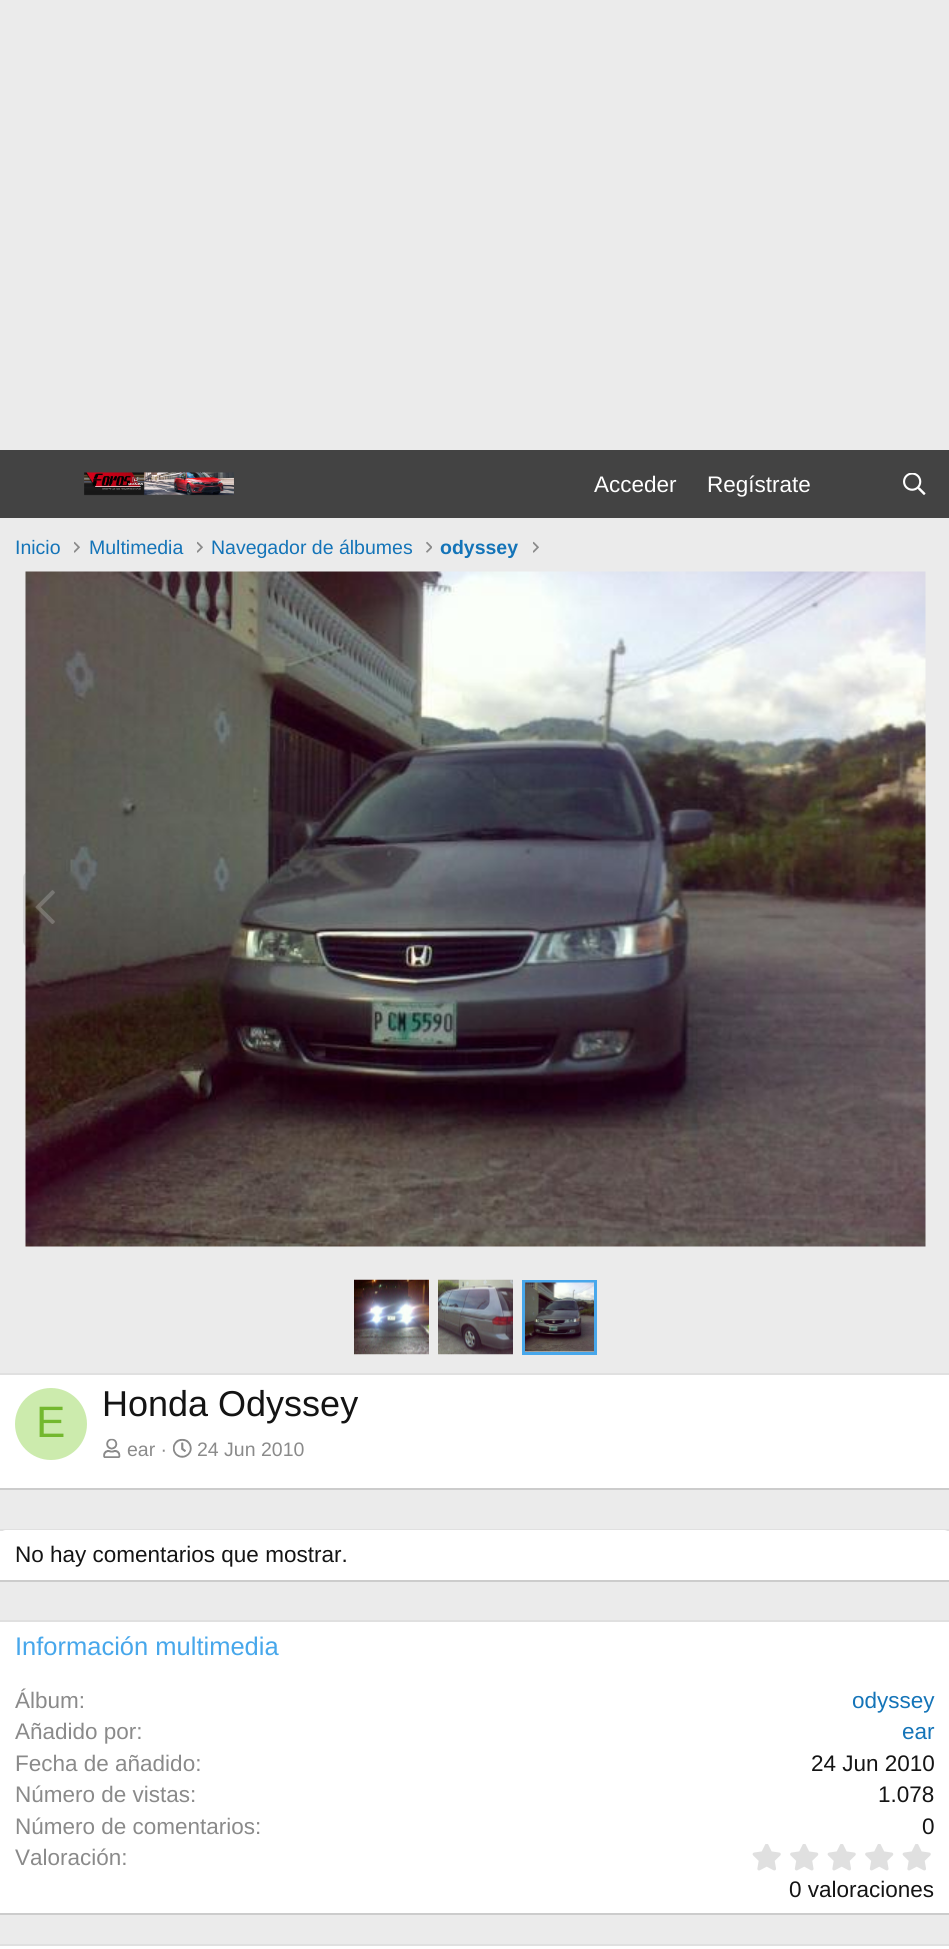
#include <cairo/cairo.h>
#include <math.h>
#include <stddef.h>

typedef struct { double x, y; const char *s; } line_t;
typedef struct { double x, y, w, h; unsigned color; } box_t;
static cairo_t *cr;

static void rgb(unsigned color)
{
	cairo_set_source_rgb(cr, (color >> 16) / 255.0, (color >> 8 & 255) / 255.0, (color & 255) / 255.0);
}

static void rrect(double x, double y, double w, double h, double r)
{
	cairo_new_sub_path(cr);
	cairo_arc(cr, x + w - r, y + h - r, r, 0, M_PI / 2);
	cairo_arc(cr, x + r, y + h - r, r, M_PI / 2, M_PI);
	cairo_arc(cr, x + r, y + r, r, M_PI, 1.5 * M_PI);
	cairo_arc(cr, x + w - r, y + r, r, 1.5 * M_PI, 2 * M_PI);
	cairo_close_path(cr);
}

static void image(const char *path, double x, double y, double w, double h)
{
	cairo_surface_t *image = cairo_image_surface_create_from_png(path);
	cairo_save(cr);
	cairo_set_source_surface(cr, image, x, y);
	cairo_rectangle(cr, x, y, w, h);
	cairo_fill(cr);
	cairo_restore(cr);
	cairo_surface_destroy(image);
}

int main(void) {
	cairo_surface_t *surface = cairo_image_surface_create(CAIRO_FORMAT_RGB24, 949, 1949);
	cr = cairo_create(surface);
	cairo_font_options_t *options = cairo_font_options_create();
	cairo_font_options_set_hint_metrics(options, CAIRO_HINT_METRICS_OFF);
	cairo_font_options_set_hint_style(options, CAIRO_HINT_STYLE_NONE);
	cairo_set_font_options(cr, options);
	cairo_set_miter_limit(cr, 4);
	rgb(0xebebeb);
	cairo_paint(cr);
	rgb(0x434343);
	cairo_rectangle(cr, 0, 450, 949, 68);
	cairo_fill(cr);
	image("img/1.png", 84, 472, 150, 24);
	image("img/2.png", 903, 473, 23, 22);
	image("img/3.png", 74, 541, 6, 12);
	image("img/3.png", 197, 541, 6, 12);
	image("img/4.png", 426, 541, 6, 12);
	image("img/3.png", 533, 541, 6, 12);
	image("img/5.png", 25, 571, 901, 676);
	cairo_set_source_rgba(cr, 0.31, 0.31, 0.31, 0.14);
	rrect(23, 872, 45, 75, 6);
	cairo_fill(cr);
	image("img/6.png", 35, 890, 20, 34);
	image("img/7.png", 354, 1279, 75, 76);
	image("img/8.png", 438, 1279, 75, 76);
	cairo_rectangle(cr, 523.5, 1281.5, 72, 72);
	rgb(0x47a7eb);
	cairo_set_line_width(cr, 3);
	cairo_stroke(cr);
	image("img/9.png", 525, 1282, 69, 70);
	{
		static const box_t items[] = {
			{0, 1375, 949, 113, 0xffffff},
			{0, 1373, 949, 2, 0xe0e0e0},
			{0, 1488, 949, 2, 0xcccccc},
		};
		for (size_t i = 0; i < sizeof items / sizeof *items; i++) {
			rgb(items[i].color);
			cairo_rectangle(cr, items[i].x, items[i].y, items[i].w, items[i].h);
			cairo_fill(cr);
		}
	}
	rgb(0xccebad);
	cairo_arc(cr, 51, 1424, 36, 0, 2 * M_PI);
	cairo_fill(cr);
	image("img/10.png", 103, 1438, 18, 20);
	image("img/11.png", 172, 1438, 20, 20);
	{
		static const box_t items[] = {
			{0, 1531, 949, 49, 0xffffff},
			{0, 1529, 949, 2, 0xe0e0e0},
			{0, 1580, 949, 2, 0xcccccc},
		};
		for (size_t i = 0; i < sizeof items / sizeof *items; i++) {
			rgb(items[i].color);
			cairo_rectangle(cr, items[i].x, items[i].y, items[i].w, items[i].h);
			cairo_fill(cr);
		}
	}
	rgb(0xffffff);
	rrect(0, 1530, 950, 50, 6);
	cairo_fill(cr);
	{
		static const box_t items[] = {
			{0, 1622, 949, 291, 0xffffff},
			{0, 1620, 949, 2, 0xe0e0e0},
			{0, 1913, 949, 2, 0xcccccc},
		};
		for (size_t i = 0; i < sizeof items / sizeof *items; i++) {
			rgb(items[i].color);
			cairo_rectangle(cr, items[i].x, items[i].y, items[i].w, items[i].h);
			cairo_fill(cr);
		}
	}
	image("img/12.png", 752, 1844, 29, 27);
	image("img/13.png", 790, 1844, 29, 27);
	image("img/12.png", 827, 1844, 29, 27);
	image("img/13.png", 865, 1844, 29, 27);
	image("img/12.png", 902, 1844, 29, 27);
	rgb(0xffffff);
	cairo_rectangle(cr, 0, 1946, 949, 3);
	cairo_fill(cr);
	rgb(0xe0e0e0);
	cairo_rectangle(cr, 0, 1944, 949, 2);
	cairo_fill(cr);
	cairo_select_font_face(cr, "Liberation Sans", CAIRO_FONT_SLANT_NORMAL, CAIRO_FONT_WEIGHT_NORMAL);
	cairo_set_font_size(cr, 22.5);
	rgb(0xffffff);
	cairo_move_to(cr, 594, 492);
	cairo_show_text(cr, "Acceder");
	cairo_move_to(cr, 707, 492);
	cairo_show_text(cr, "Regístrate");
	cairo_set_font_size(cr, 19.5);
	rgb(0x1474b8);
	{
		static const line_t items[] = {
			{15, 554, "Inicio"},
			{89, 554, "Multimedia"},
			{211, 554, "Navegador de álbumes"},
		};
		for (size_t i = 0; i < sizeof items / sizeof *items; i++) {
			cairo_move_to(cr, items[i].x, items[i].y);
			cairo_show_text(cr, items[i].s);
		}
	}
	cairo_select_font_face(cr, "Liberation Sans", CAIRO_FONT_SLANT_NORMAL, CAIRO_FONT_WEIGHT_BOLD);
	cairo_move_to(cr, 440, 554);
	cairo_show_text(cr, "odyssey");
	cairo_select_font_face(cr, "Liberation Sans", CAIRO_FONT_SLANT_NORMAL, CAIRO_FONT_WEIGHT_NORMAL);
	cairo_set_font_size(cr, 44);
	rgb(0x73b82e);
	cairo_move_to(cr, 36, 1437);
	cairo_show_text(cr, "E");
	cairo_set_font_size(cr, 36);
	rgb(0x141414);
	cairo_move_to(cr, 102, 1416);
	cairo_show_text(cr, "Honda Odyssey");
	cairo_set_font_size(cr, 19.5);
	rgb(0x8a8a8a);
	cairo_move_to(cr, 127, 1456);
	cairo_show_text(cr, "ear ·");
	cairo_move_to(cr, 197, 1456);
	cairo_show_text(cr, "24 Jun 2010");
	cairo_set_font_size(cr, 22.5);
	rgb(0x141414);
	cairo_move_to(cr, 15, 1562);
	cairo_show_text(cr, "No hay comentarios que mostrar.");
	cairo_set_font_size(cr, 25.5);
	rgb(0x47a7eb);
	cairo_move_to(cr, 15, 1655);
	cairo_show_text(cr, "Información multimedia");
	cairo_set_font_size(cr, 22.5);
	rgb(0x8a8a8a);
	cairo_move_to(cr, 15, 1708);
	cairo_show_text(cr, "Álbum:");
	rgb(0x1474b8);
	cairo_move_to(cr, 852, 1708);
	cairo_show_text(cr, "odyssey");
	rgb(0x8a8a8a);
	cairo_move_to(cr, 15, 1739);
	cairo_show_text(cr, "Añadido por:");
	rgb(0x1474b8);
	cairo_move_to(cr, 902, 1739);
	cairo_show_text(cr, "ear");
	rgb(0x8a8a8a);
	cairo_move_to(cr, 15, 1771);
	cairo_show_text(cr, "Fecha de añadido:");
	rgb(0x141414);
	cairo_move_to(cr, 811, 1771);
	cairo_show_text(cr, "24 Jun 2010");
	rgb(0x8a8a8a);
	cairo_move_to(cr, 15, 1802);
	cairo_show_text(cr, "Número de vistas:");
	rgb(0x141414);
	cairo_move_to(cr, 878, 1802);
	cairo_show_text(cr, "1.078");
	rgb(0x8a8a8a);
	cairo_move_to(cr, 15, 1834);
	cairo_show_text(cr, "Número de comentarios:");
	rgb(0x141414);
	cairo_move_to(cr, 922, 1834);
	cairo_show_text(cr, "0");
	rgb(0x8a8a8a);
	cairo_move_to(cr, 15, 1865);
	cairo_show_text(cr, "Valoración:");
	rgb(0x141414);
	cairo_move_to(cr, 789, 1897);
	cairo_show_text(cr, "0 valoraciones");
	cairo_surface_write_to_png(surface, "page.png");
	cairo_font_options_destroy(options);
	cairo_destroy(cr);
	cairo_surface_destroy(surface);
	return 0;
}
